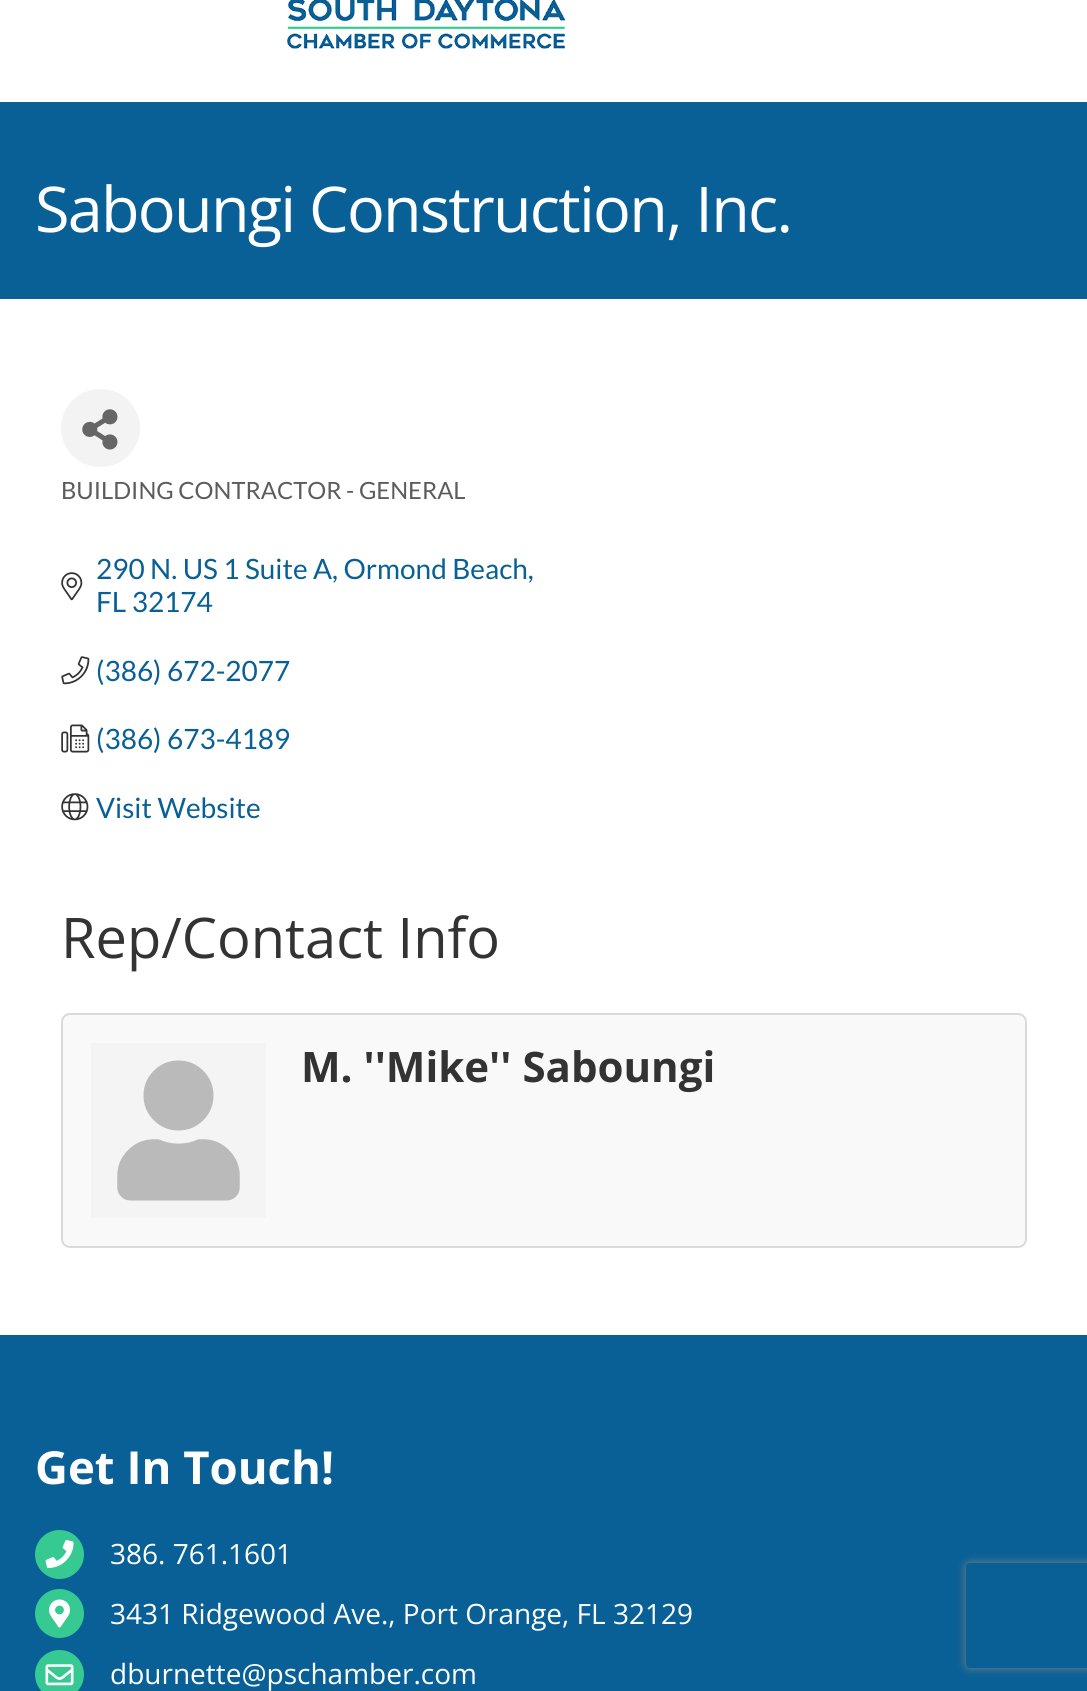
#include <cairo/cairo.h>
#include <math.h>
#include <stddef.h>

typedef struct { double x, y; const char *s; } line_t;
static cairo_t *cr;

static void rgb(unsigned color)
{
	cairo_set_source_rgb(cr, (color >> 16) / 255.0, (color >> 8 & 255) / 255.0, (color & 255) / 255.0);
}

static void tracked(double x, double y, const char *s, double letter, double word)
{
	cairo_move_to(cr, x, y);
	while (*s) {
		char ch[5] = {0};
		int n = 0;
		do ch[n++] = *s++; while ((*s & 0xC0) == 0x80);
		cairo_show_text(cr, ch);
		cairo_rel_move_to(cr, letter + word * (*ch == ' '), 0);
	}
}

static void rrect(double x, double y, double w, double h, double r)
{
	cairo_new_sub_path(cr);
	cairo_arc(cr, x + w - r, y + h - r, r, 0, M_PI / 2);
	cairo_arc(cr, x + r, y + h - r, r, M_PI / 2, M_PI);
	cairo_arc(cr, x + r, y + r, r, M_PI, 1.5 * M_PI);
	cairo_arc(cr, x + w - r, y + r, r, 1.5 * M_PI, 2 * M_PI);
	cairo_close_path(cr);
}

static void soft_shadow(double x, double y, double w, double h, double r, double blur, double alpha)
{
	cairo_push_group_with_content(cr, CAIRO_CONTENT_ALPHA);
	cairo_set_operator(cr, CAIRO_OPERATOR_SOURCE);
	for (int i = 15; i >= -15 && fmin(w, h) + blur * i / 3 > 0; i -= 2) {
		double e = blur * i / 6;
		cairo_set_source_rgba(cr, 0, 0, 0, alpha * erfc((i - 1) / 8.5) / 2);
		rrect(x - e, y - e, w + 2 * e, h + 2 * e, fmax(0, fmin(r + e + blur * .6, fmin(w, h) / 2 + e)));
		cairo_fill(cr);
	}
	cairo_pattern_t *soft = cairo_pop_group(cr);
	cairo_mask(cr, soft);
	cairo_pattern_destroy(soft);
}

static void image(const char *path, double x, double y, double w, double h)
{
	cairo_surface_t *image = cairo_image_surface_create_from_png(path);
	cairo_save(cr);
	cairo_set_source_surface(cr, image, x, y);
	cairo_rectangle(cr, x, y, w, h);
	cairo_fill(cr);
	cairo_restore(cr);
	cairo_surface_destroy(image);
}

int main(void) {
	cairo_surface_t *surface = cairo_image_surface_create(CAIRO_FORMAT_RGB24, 1087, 1691);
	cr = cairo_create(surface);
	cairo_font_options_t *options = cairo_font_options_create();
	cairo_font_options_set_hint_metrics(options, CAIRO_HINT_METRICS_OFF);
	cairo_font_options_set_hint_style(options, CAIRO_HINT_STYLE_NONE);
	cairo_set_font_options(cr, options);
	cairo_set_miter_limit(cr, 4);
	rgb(0xffffff);
	cairo_paint(cr);
	image("img/1.png", 287, 0, 279, 49);
	rgb(0x086096);
	cairo_rectangle(cr, 0, 102, 1087, 197);
	cairo_fill(cr);
	rgb(0xf3f3f3);
	rrect(61, 389, 79, 78, 39);
	cairo_fill(cr);
	image("img/2.png", 82, 409, 36, 41);
	image("img/3.png", 61, 572, 22, 29);
	image("img/4.png", 61, 656, 29, 29);
	image("img/5.png", 61, 724, 29, 29);
	image("img/6.png", 61, 793, 28, 28);
	rgb(0xf9f9f9);
	rrect(62, 1014, 964, 233, 8);
	cairo_fill_preserve(cr);
	rgb(0xdadada);
	cairo_stroke(cr);
	rgb(0xf4f4f4);
	cairo_rectangle(cr, 91, 1043, 175, 175);
	cairo_fill(cr);
	image("img/7.png", 117, 1060, 123, 141);
	rgb(0x086096);
	cairo_rectangle(cr, 0, 1335, 1087, 356);
	cairo_fill(cr);
	rgb(0x36c991);
	cairo_arc(cr, 59.5, 1554.5, 24.5, 0, 2 * M_PI);
	cairo_fill(cr);
	image("img/8.png", 45, 1540, 29, 28);
	cairo_arc(cr, 59.5, 1613.5, 24.5, 0, 2 * M_PI);
	cairo_fill(cr);
	image("img/9.png", 49, 1599, 21, 29);
	cairo_arc(cr, 59.5, 1674.5, 24.5, 0, 2 * M_PI);
	cairo_fill(cr);
	image("img/10.png", 45, 1664, 29, 22);
	cairo_save(cr);
	cairo_set_fill_rule(cr, CAIRO_FILL_RULE_EVEN_ODD);
	cairo_new_path(cr);
	cairo_move_to(cr, 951, 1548);
	cairo_line_to(cr, 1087, 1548);
	cairo_line_to(cr, 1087, 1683);
	cairo_line_to(cr, 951, 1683);
	cairo_close_path(cr);
	cairo_move_to(cr, 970, 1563);
	cairo_line_to(cr, 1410, 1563);
	cairo_curve_to(cr, 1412, 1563, 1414, 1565, 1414, 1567);
	cairo_line_to(cr, 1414, 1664);
	cairo_curve_to(cr, 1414, 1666, 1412, 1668, 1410, 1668);
	cairo_line_to(cr, 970, 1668);
	cairo_curve_to(cr, 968, 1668, 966, 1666, 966, 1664);
	cairo_line_to(cr, 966, 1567);
	cairo_curve_to(cr, 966, 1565, 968, 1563, 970, 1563);
	cairo_close_path(cr);
	cairo_clip(cr);
	rgb(0x808080);
	soft_shadow(966, 1563, 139, 105, 4, 4.5, 1);
	cairo_restore(cr);
	cairo_select_font_face(cr, "Open Sans", CAIRO_FONT_SLANT_NORMAL, CAIRO_FONT_WEIGHT_NORMAL);
	cairo_set_font_size(cr, 63);
	rgb(0xffffff);
	tracked(35, 232, "Saboungi Construction, Inc.", -1.75, 0);
	cairo_select_font_face(cr, "Lato", CAIRO_FONT_SLANT_NORMAL, CAIRO_FONT_WEIGHT_NORMAL);
	cairo_set_font_size(cr, 23.75);
	rgb(0x5c5c5c);
	cairo_move_to(cr, 61, 499);
	cairo_show_text(cr, "BUILDING CONTRACTOR - GENERAL");
	cairo_set_font_size(cr, 28);
	rgb(0x086096);
	{
		static const line_t items[] = {
			{96, 579, "290 N. US 1 Suite A, Ormond Beach,"},
			{96, 612, "FL 32174"},
			{96, 681, "(386) 672-2077"},
			{96, 749, "(386) 673-4189"},
			{96, 818, "Visit Website"},
		};
		for (size_t i = 0; i < sizeof items / sizeof *items; i++) {
			cairo_move_to(cr, items[i].x, items[i].y);
			cairo_show_text(cr, items[i].s);
		}
	}
	cairo_select_font_face(cr, "Open Sans", CAIRO_FONT_SLANT_NORMAL, CAIRO_FONT_WEIGHT_NORMAL);
	cairo_set_font_size(cr, 56);
	rgb(0x333333);
	cairo_move_to(cr, 61, 958);
	cairo_show_text(cr, "Rep/Contact Info");
	cairo_select_font_face(cr, "Open Sans", CAIRO_FONT_SLANT_NORMAL, CAIRO_FONT_WEIGHT_BOLD);
	cairo_set_font_size(cr, 42);
	cairo_move_to(cr, 301, 1082);
	cairo_show_text(cr, "M. ''Mike'' Saboungi");
	cairo_set_font_size(cr, 45.5);
	rgb(0xffffff);
	cairo_move_to(cr, 35, 1484);
	cairo_show_text(cr, "Get In Touch!");
	cairo_select_font_face(cr, "Open Sans", CAIRO_FONT_SLANT_NORMAL, CAIRO_FONT_WEIGHT_NORMAL);
	cairo_set_font_size(cr, 28);
	{
		static const line_t items[] = {
			{110, 1564, "386. 761.1601"},
			{110, 1624, "3431 Ridgewood Ave., Port Orange, FL 32129"},
			{110, 1684, "dburnette@pschamber.com"},
		};
		for (size_t i = 0; i < sizeof items / sizeof *items; i++) {
			cairo_move_to(cr, items[i].x, items[i].y);
			cairo_show_text(cr, items[i].s);
		}
	}
	cairo_surface_write_to_png(surface, "page.png");
	cairo_font_options_destroy(options);
	cairo_destroy(cr);
	cairo_surface_destroy(surface);
	return 0;
}
